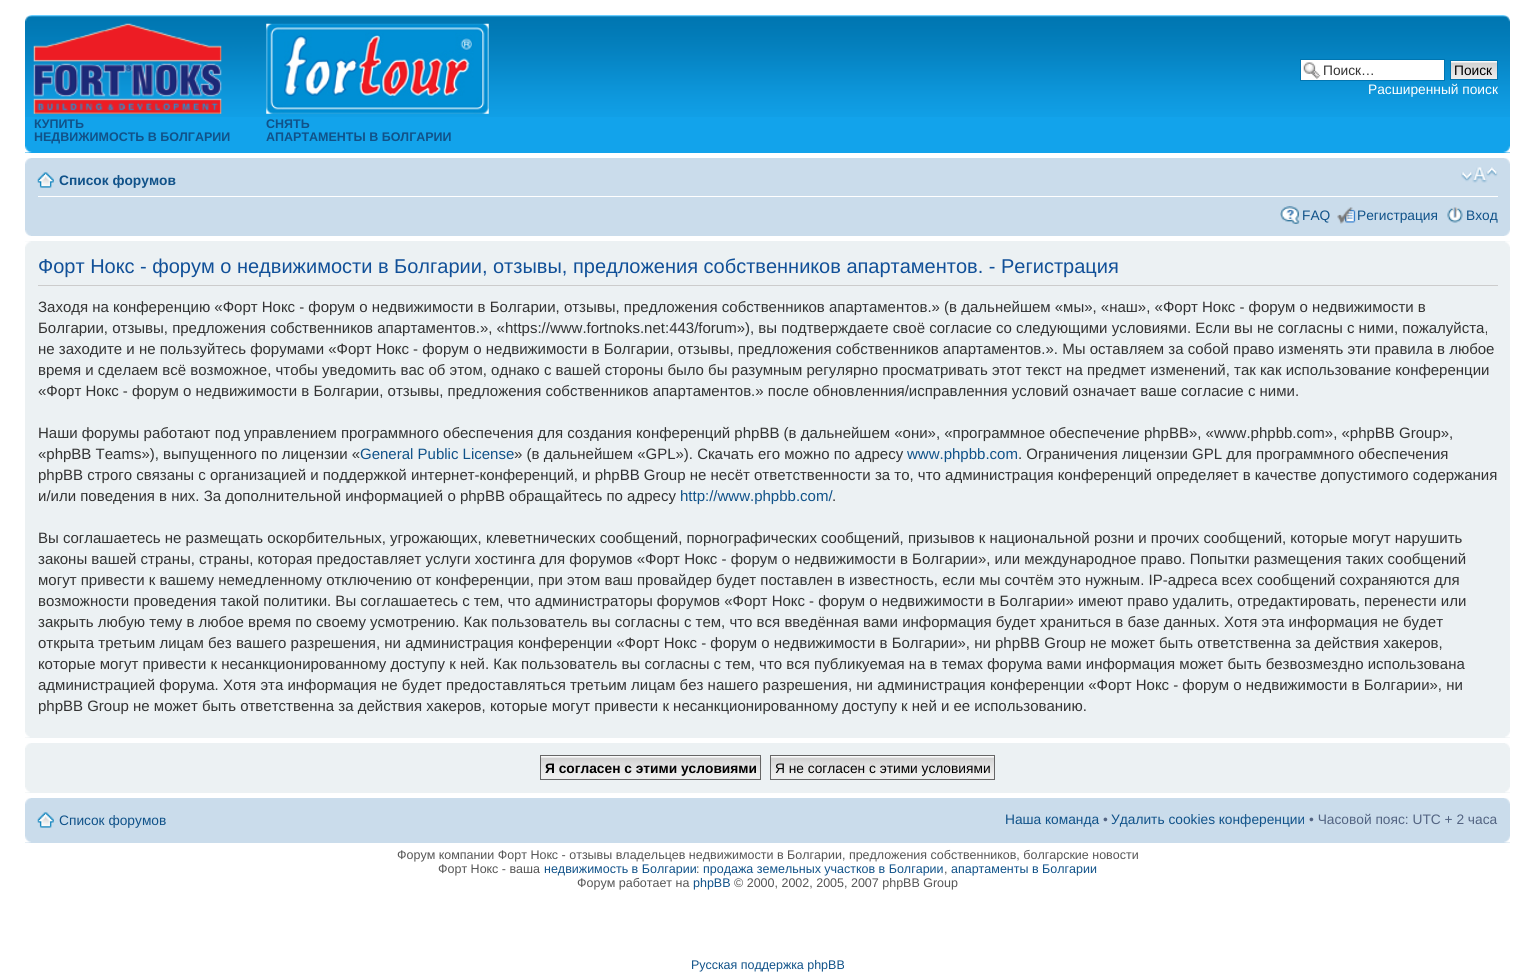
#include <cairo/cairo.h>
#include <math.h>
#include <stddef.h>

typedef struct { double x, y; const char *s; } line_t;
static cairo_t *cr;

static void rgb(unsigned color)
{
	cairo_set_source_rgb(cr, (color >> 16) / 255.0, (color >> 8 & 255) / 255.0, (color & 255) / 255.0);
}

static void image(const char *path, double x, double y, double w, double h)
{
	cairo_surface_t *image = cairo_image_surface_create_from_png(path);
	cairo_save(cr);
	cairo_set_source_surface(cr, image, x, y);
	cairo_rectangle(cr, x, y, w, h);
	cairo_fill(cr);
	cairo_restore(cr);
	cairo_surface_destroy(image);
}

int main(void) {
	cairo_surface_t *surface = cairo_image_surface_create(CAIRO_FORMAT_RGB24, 1535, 980);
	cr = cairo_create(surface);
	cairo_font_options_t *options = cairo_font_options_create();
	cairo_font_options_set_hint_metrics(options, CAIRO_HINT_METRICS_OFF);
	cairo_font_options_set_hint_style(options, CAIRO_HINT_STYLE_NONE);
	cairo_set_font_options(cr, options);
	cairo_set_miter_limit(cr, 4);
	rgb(0xffffff);
	cairo_paint(cr);
	rgb(0x12a3eb);
	cairo_rectangle(cr, 25, 117, 1485, 36);
	cairo_fill(cr);
	image("img/1.png", 25, 15, 1485, 102);
	image("img/2.png", 25, 15, 7, 7);
	image("img/3.png", 1503, 15, 7, 7);
	rgb(0xffffff);
	cairo_rectangle(cr, 1301, 60, 143, 20);
	cairo_fill(cr);
	image("img/4.png", 1303, 62, 18, 17);
	cairo_rectangle(cr, 1300.5, 59.5, 144, 21);
	rgb(0x0075b0);
	cairo_set_line_width(cr, 1);
	cairo_stroke(cr);
	rgb(0xfafafa);
	cairo_rectangle(cr, 1451, 61, 46, 1);
	cairo_fill(cr);
	image("img/5.png", 1451, 62, 46, 17);
	cairo_rectangle(cr, 1450.5, 60.5, 47, 19);
	rgb(0x0075b0);
	cairo_stroke(cr);
	image("img/6.png", 33, 23, 189, 91);
	image("img/7.png", 266, 23, 223, 91);
	image("img/8.png", 25, 146, 7, 7);
	image("img/9.png", 1503, 146, 7, 7);
	rgb(0xcadceb);
	cairo_rectangle(cr, 25, 158, 1485, 78);
	cairo_fill(cr);
	image("img/10.png", 25, 158, 6, 6);
	image("img/11.png", 1504, 158, 6, 6);
	rgb(0xffffff);
	cairo_rectangle(cr, 38, 196, 1460, 1);
	cairo_fill(cr);
	image("img/12.png", 37, 172, 17, 16);
	image("img/13.png", 1461, 167, 37, 16);
	image("img/14.png", 1280, 206, 20, 18);
	image("img/15.png", 1337, 207, 19, 17);
	image("img/16.png", 1447, 207, 16, 16);
	image("img/17.png", 25, 230, 6, 6);
	image("img/18.png", 1504, 230, 6, 6);
	rgb(0xecf1f3);
	cairo_rectangle(cr, 25, 241, 1485, 497);
	cairo_fill(cr);
	image("img/19.png", 25, 241, 6, 6);
	image("img/20.png", 1505, 241, 5, 6);
	rgb(0xcccccc);
	cairo_rectangle(cr, 38, 285, 1460, 1);
	cairo_fill(cr);
	image("img/21.png", 25, 732, 5, 6);
	image("img/22.png", 1505, 732, 5, 6);
	rgb(0xecf1f3);
	cairo_rectangle(cr, 25, 743, 1485, 50);
	cairo_fill(cr);
	image("img/23.png", 25, 743, 6, 5);
	image("img/24.png", 1505, 743, 5, 5);
	rgb(0xfafafa);
	cairo_rectangle(cr, 541, 756, 219, 1);
	cairo_fill(cr);
	image("img/25.png", 541, 757, 221, 23);
	cairo_rectangle(cr, 540.5, 755.5, 220, 24);
	rgb(0x666666);
	cairo_stroke(cr);
	rgb(0xfafafa);
	cairo_rectangle(cr, 771, 756, 223, 1);
	cairo_fill(cr);
	image("img/26.png", 771, 757, 223, 22);
	cairo_rectangle(cr, 770.5, 755.5, 224, 24);
	rgb(0x666666);
	cairo_stroke(cr);
	image("img/21.png", 25, 787, 5, 6);
	image("img/22.png", 1505, 787, 5, 6);
	rgb(0xcadceb);
	cairo_rectangle(cr, 25, 798, 1485, 45);
	cairo_fill(cr);
	image("img/10.png", 25, 798, 6, 6);
	image("img/11.png", 1504, 798, 6, 6);
	image("img/12.png", 37, 812, 17, 16);
	image("img/27.png", 25, 836, 6, 7);
	image("img/28.png", 1504, 836, 6, 7);
	cairo_select_font_face(cr, "Liberation Sans", CAIRO_FONT_SLANT_NORMAL, CAIRO_FONT_WEIGHT_NORMAL);
	cairo_set_font_size(cr, 13.75);
	rgb(0x333333);
	cairo_move_to(cr, 1323, 75);
	cairo_show_text(cr, "Поиск…");
	rgb(0x000000);
	cairo_move_to(cr, 1454, 75);
	cairo_show_text(cr, "Поиск");
	rgb(0xffffff);
	cairo_move_to(cr, 1368, 94);
	cairo_show_text(cr, "Расширенный поиск");
	cairo_select_font_face(cr, "Liberation Sans", CAIRO_FONT_SLANT_NORMAL, CAIRO_FONT_WEIGHT_BOLD);
	cairo_set_font_size(cr, 12.5);
	rgb(0x105289);
	{
		static const line_t items[] = {
			{34, 128, "КУПИТЬ"},
			{34, 141, "НЕДВИЖИМОСТЬ В БОЛГАРИИ"},
			{266, 128, "СНЯТЬ"},
			{266, 141, "АПАРТАМЕНТЫ В БОЛГАРИИ"},
		};
		for (size_t i = 0; i < sizeof items / sizeof *items; i++) {
			cairo_move_to(cr, items[i].x, items[i].y);
			cairo_show_text(cr, items[i].s);
		}
	}
	cairo_set_font_size(cr, 13.75);
	cairo_move_to(cr, 59, 185);
	cairo_show_text(cr, "Список форумов");
	cairo_select_font_face(cr, "Liberation Sans", CAIRO_FONT_SLANT_NORMAL, CAIRO_FONT_WEIGHT_NORMAL);
	{
		static const line_t items[] = {
			{1302, 220, "FAQ"},
			{1357, 220, "Регистрация"},
			{1466, 220, "Вход"},
		};
		for (size_t i = 0; i < sizeof items / sizeof *items; i++) {
			cairo_move_to(cr, items[i].x, items[i].y);
			cairo_show_text(cr, items[i].s);
		}
	}
	cairo_set_font_size(cr, 20);
	rgb(0x115098);
	cairo_move_to(cr, 38, 273);
	cairo_show_text(cr, "Форт Нокс - форум о недвижимости в Болгарии, отзывы, предложения собственников апартаментов. - Регистрация");
	cairo_set_font_size(cr, 15);
	rgb(0x333333);
	{
		static const line_t items[] = {
			{38, 312, "Заходя на конференцию «Форт Нокс - форум о недвижимости в Болгарии, отзывы, предложения собственников апартаментов.» (в дальнейшем «мы», «наш», «Форт Нокс - форум о недвижимости в"},
			{38, 333, "Болгарии, отзывы, предложения собственников апартаментов.», «https://www.fortnoks.net:443/forum»), вы подтверждаете своё согласие со следующими условиями. Если вы не согласны с ними, пожалуйста,"},
			{38, 354, "не заходите и не пользуйтесь форумами «Форт Нокс - форум о недвижимости в Болгарии, отзывы, предложения собственников апартаментов.». Мы оставляем за собой право изменять эти правила в любое"},
			{38, 375, "время и сделаем всё возможное, чтобы уведомить вас об этом, однако с вашей стороны было бы разумным регулярно просматривать этот текст на предмет изменений, так как использование конференции"},
			{38, 396, "«Форт Нокс - форум о недвижимости в Болгарии, отзывы, предложения собственников апартаментов.» после обновленния/исправленния условий означает ваше согласие с ними."},
			{38, 438, "Наши форумы работают под управлением программного обеспечения для создания конференций phpBB (в дальнейшем «они», «программное обеспечение phpBB», «www.phpbb.com», «phpBB Group»,"},
			{38, 459, "«phpBB Teams»), выпущенного по лицензии «"},
		};
		for (size_t i = 0; i < sizeof items / sizeof *items; i++) {
			cairo_move_to(cr, items[i].x, items[i].y);
			cairo_show_text(cr, items[i].s);
		}
	}
	rgb(0x105289);
	cairo_move_to(cr, 360, 459);
	cairo_show_text(cr, "General Public License");
	rgb(0x333333);
	cairo_move_to(cr, 514, 459);
	cairo_show_text(cr, "» (в дальнейшем «GPL»). Скачать его можно по адресу");
	rgb(0x105289);
	cairo_move_to(cr, 907, 459);
	cairo_show_text(cr, "www.phpbb.com");
	rgb(0x333333);
	{
		static const line_t items[] = {
			{1018, 459, ". Ограничения лицензии GPL для программного обеспечения"},
			{38, 480, "phpBB строго связаны с организацией и поддержкой интернет-конференций, и phpBB Group не несёт ответственности за то, что администрация конференций определяет в качестве допустимого содержания"},
			{38, 501, "и/или поведения в них. За дополнительной информацией о phpBB обращайтесь по адресу"},
		};
		for (size_t i = 0; i < sizeof items / sizeof *items; i++) {
			cairo_move_to(cr, items[i].x, items[i].y);
			cairo_show_text(cr, items[i].s);
		}
	}
	rgb(0x105289);
	cairo_move_to(cr, 680, 501);
	cairo_show_text(cr, "http://www.phpbb.com/");
	rgb(0x333333);
	{
		static const line_t items[] = {
			{832, 501, "."},
			{38, 543, "Вы соглашаетесь не размещать оскорбительных, угрожающих, клеветнических сообщений, порнографических сообщений, призывов к национальной розни и прочих сообщений, которые могут нарушить"},
			{38, 564, "законы вашей страны, страны, которая предоставляет услуги хостинга для форумов «Форт Нокс - форум о недвижимости в Болгарии», или международное право. Попытки размещения таких сообщений"},
			{38, 585, "могут привести к вашему немедленному отключению от конференции, при этом ваш провайдер будет поставлен в известность, если мы сочтём это нужным. IP-адреса всех сообщений сохраняются для"},
			{38, 606, "возможности проведения такой политики. Вы соглашаетесь с тем, что администраторы форумов «Форт Нокс - форум о недвижимости в Болгарии» имеют право удалить, отредактировать, перенести или"},
			{38, 627, "закрыть любую тему в любое время по своему усмотрению. Как пользователь вы согласны с тем, что вся введённая вами информация будет храниться в базе данных. Хотя эта информация не будет"},
			{38, 648, "открыта третьим лицам без вашего разрешения, ни администрация конференции «Форт Нокс - форум о недвижимости в Болгарии», ни phpBB Group не может быть ответственна за действия хакеров,"},
			{38, 669, "которые могут привести к несанкционированному доступу к ней. Как пользователь вы согласны с тем, что вся публикуемая на в темах форума вами информация может быть безвозмездно использована"},
			{38, 690, "администрацией форума. Хотя эта информация не будет предоставляться третьим лицам без нашего разрешения, ни администрация конференции «Форт Нокс - форум о недвижимости в Болгарии», ни"},
			{38, 711, "phpBB Group не может быть ответственна за действия хакеров, которые могут привести к несанкционированному доступу к ней и ее использованию."},
		};
		for (size_t i = 0; i < sizeof items / sizeof *items; i++) {
			cairo_move_to(cr, items[i].x, items[i].y);
			cairo_show_text(cr, items[i].s);
		}
	}
	cairo_select_font_face(cr, "Liberation Sans", CAIRO_FONT_SLANT_NORMAL, CAIRO_FONT_WEIGHT_BOLD);
	cairo_set_font_size(cr, 13.75);
	rgb(0x000000);
	cairo_move_to(cr, 545, 773);
	cairo_show_text(cr, "Я согласен с этими условиями");
	cairo_select_font_face(cr, "Liberation Sans", CAIRO_FONT_SLANT_NORMAL, CAIRO_FONT_WEIGHT_NORMAL);
	cairo_move_to(cr, 775, 773);
	cairo_show_text(cr, "Я не согласен с этими условиями");
	rgb(0x105289);
	cairo_move_to(cr, 59, 825);
	cairo_show_text(cr, "Список форумов");
	cairo_move_to(cr, 1005, 824);
	cairo_show_text(cr, "Наша команда");
	rgb(0x536482);
	cairo_move_to(cr, 1103, 824);
	cairo_show_text(cr, "•");
	rgb(0x105289);
	cairo_move_to(cr, 1111, 824);
	cairo_show_text(cr, "Удалить cookies конференции");
	rgb(0x536482);
	cairo_move_to(cr, 1309, 824);
	cairo_show_text(cr, "• Часовой пояс: UTC + 2 часа");
	cairo_set_font_size(cr, 12.5);
	rgb(0x555555);
	cairo_move_to(cr, 397, 859);
	cairo_show_text(cr, "Форум компании Форт Нокс - отзывы владельцев недвижимости в Болгарии, предложения собственников, болгарские новости");
	cairo_move_to(cr, 438, 873);
	cairo_show_text(cr, "Форт Нокс - ваша");
	rgb(0x105289);
	cairo_move_to(cr, 544, 873);
	cairo_show_text(cr, "недвижимость в Болгарии");
	rgb(0x555555);
	cairo_move_to(cr, 696, 873);
	cairo_show_text(cr, ":");
	rgb(0x105289);
	cairo_move_to(cr, 703, 873);
	cairo_show_text(cr, "продажа земельных участков в Болгарии");
	rgb(0x555555);
	cairo_move_to(cr, 944, 873);
	cairo_show_text(cr, ",");
	rgb(0x105289);
	cairo_move_to(cr, 951, 873);
	cairo_show_text(cr, "апартаменты в Болгарии");
	rgb(0x555555);
	cairo_move_to(cr, 577, 887);
	cairo_show_text(cr, "Форум работает на");
	rgb(0x105289);
	cairo_move_to(cr, 693, 887);
	cairo_show_text(cr, "phpBB");
	rgb(0x555555);
	cairo_move_to(cr, 734, 887);
	cairo_show_text(cr, "© 2000, 2002, 2005, 2007 phpBB Group");
	rgb(0x105289);
	cairo_move_to(cr, 691, 969);
	cairo_show_text(cr, "Русская поддержка phpBB");
	cairo_surface_write_to_png(surface, "page.png");
	cairo_font_options_destroy(options);
	cairo_destroy(cr);
	cairo_surface_destroy(surface);
	return 0;
}
